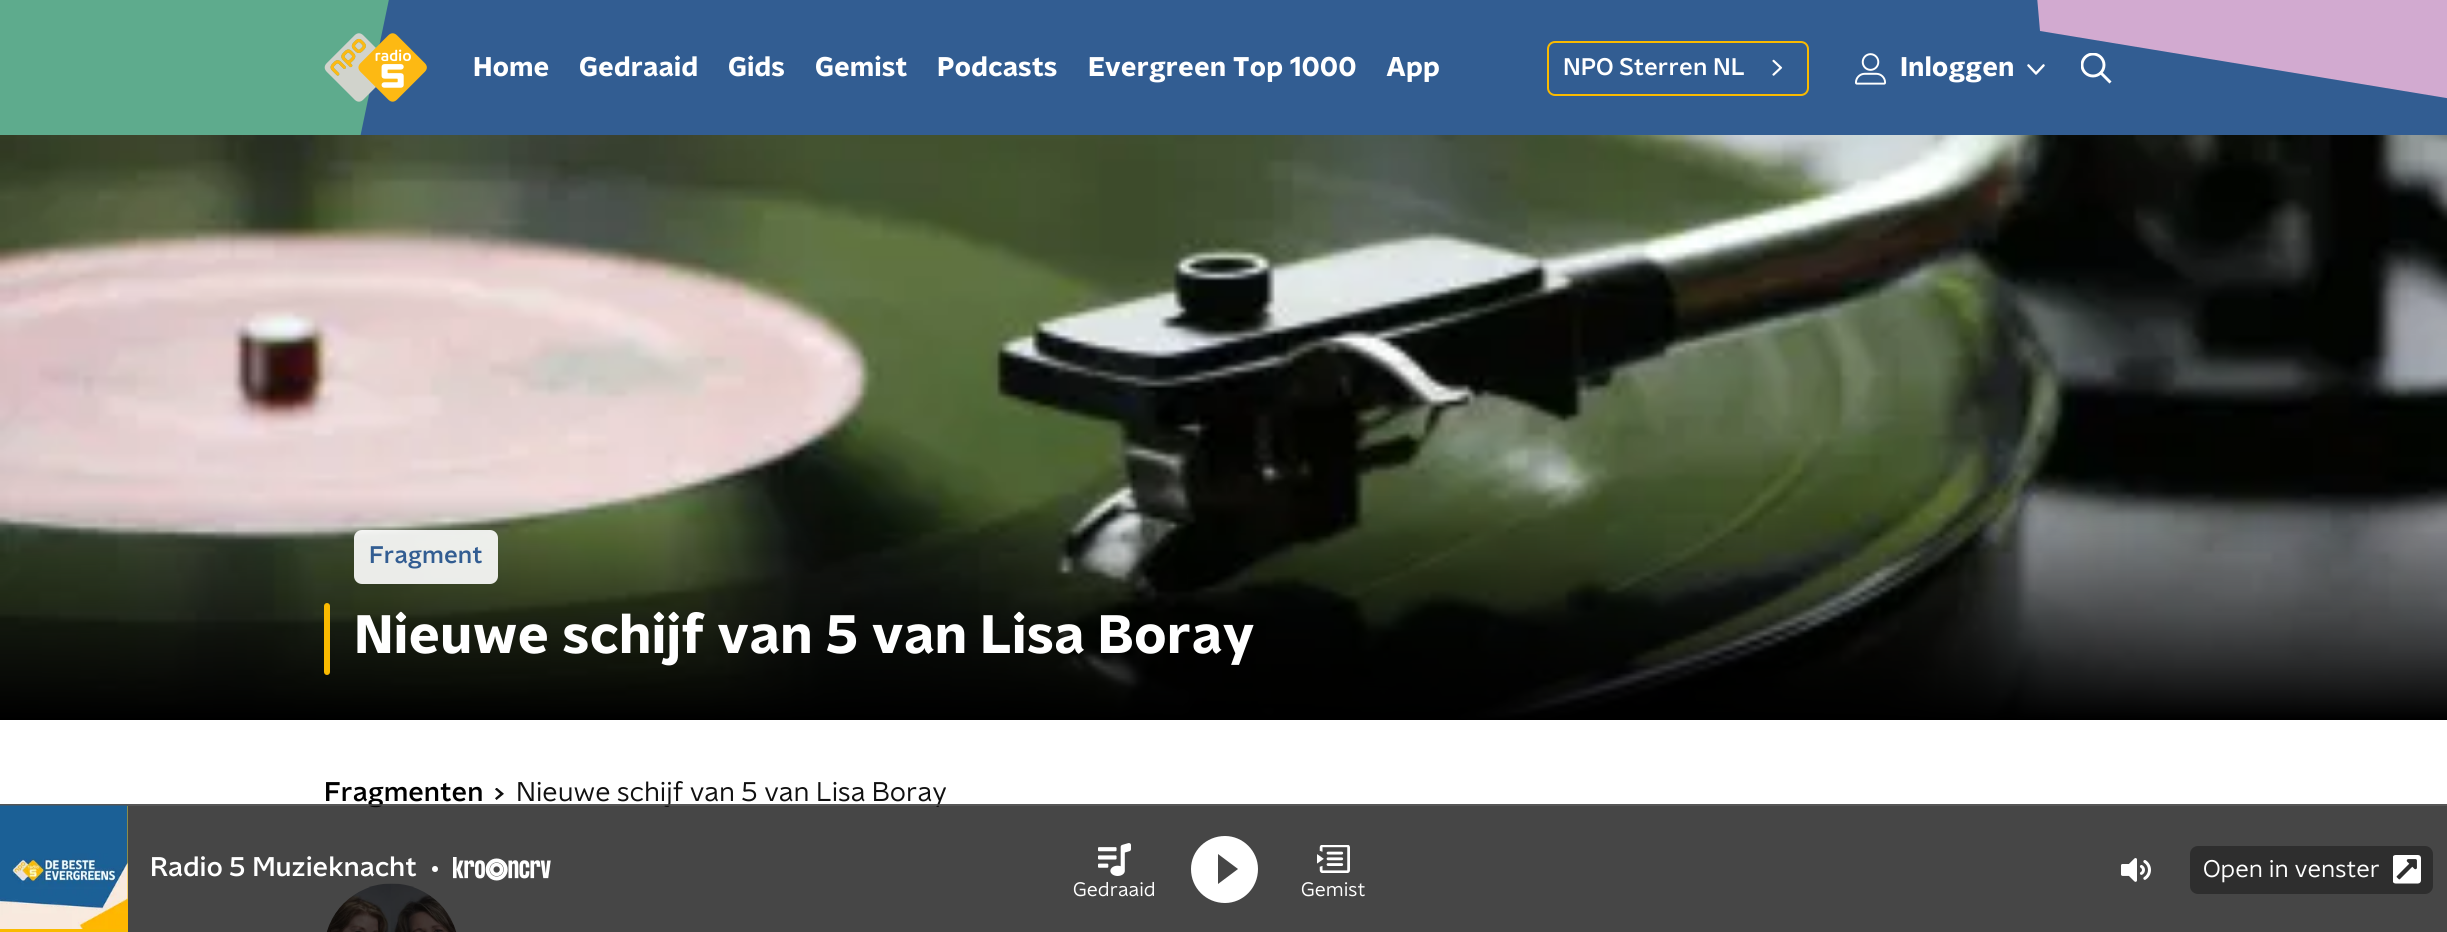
#include <cairo/cairo.h>
#include <math.h>
#include <stddef.h>

typedef struct { double x, y; const char *s; } line_t;
static cairo_t *cr;

static void rgb(unsigned color)
{
	cairo_set_source_rgb(cr, (color >> 16) / 255.0, (color >> 8 & 255) / 255.0, (color & 255) / 255.0);
}

static void rrect(double x, double y, double w, double h, double r)
{
	cairo_new_sub_path(cr);
	cairo_arc(cr, x + w - r, y + h - r, r, 0, M_PI / 2);
	cairo_arc(cr, x + r, y + h - r, r, M_PI / 2, M_PI);
	cairo_arc(cr, x + r, y + r, r, M_PI, 1.5 * M_PI);
	cairo_arc(cr, x + w - r, y + r, r, 1.5 * M_PI, 2 * M_PI);
	cairo_close_path(cr);
}

static void image(const char *path, double x, double y, double w, double h)
{
	cairo_surface_t *image = cairo_image_surface_create_from_png(path);
	cairo_save(cr);
	cairo_set_source_surface(cr, image, x, y);
	cairo_rectangle(cr, x, y, w, h);
	cairo_fill(cr);
	cairo_restore(cr);
	cairo_surface_destroy(image);
}

int main(void) {
	cairo_surface_t *surface = cairo_image_surface_create(CAIRO_FORMAT_RGB24, 2447, 932);
	cr = cairo_create(surface);
	cairo_font_options_t *options = cairo_font_options_create();
	cairo_font_options_set_hint_metrics(options, CAIRO_HINT_METRICS_OFF);
	cairo_font_options_set_hint_style(options, CAIRO_HINT_STYLE_NONE);
	cairo_set_font_options(cr, options);
	cairo_set_miter_limit(cr, 4);
	rgb(0xffffff);
	cairo_paint(cr);
	rgb(0x325d92);
	cairo_rectangle(cr, 360, 0, 2087, 135);
	cairo_fill(cr);
	cairo_save(cr);
	cairo_rectangle(cr, 0, 0, 416, 135);
	cairo_clip(cr);
	rgb(0x5eab8d);
	cairo_new_path(cr);
	cairo_move_to(cr, 416, -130);
	cairo_line_to(cr, 66, 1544);
	cairo_line_to(cr, -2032, 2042);
	cairo_line_to(cr, -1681, 368);
	cairo_close_path(cr);
	cairo_fill(cr);
	cairo_restore(cr);
	rgb(0xd2aad0);
	cairo_new_path(cr);
	cairo_move_to(cr, 2040, 31);
	cairo_line_to(cr, 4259, 397);
	cairo_line_to(cr, 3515, -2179);
	cairo_line_to(cr, 1812, -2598);
	cairo_close_path(cr);
	cairo_fill(cr);
	image("img/1.png", 324, 33, 103, 69);
	rrect(1548, 42, 260, 53, 7);
	rgb(0xfaba00);
	cairo_stroke(cr);
	image("img/2.png", 1772, 59, 11, 17);
	image("img/3.png", 1855, 53, 31, 32);
	image("img/4.png", 2027, 64, 18, 11);
	cairo_save(cr);
	cairo_rectangle(cr, 2081, 53, 30, 30);
	cairo_clip(cr);
	cairo_arc(cr, 2093, 65, 11, 0, 2 * M_PI);
	rgb(0xffffff);
	cairo_set_line_width(cr, 2.9);
	cairo_stroke(cr);
	cairo_restore(cr);
	cairo_new_path(cr);
	cairo_move_to(cr, 2101, 73);
	cairo_line_to(cr, 2109.5, 81.5);
	rgb(0xffffff);
	cairo_set_line_width(cr, 2.9);
	cairo_set_line_cap(cr, CAIRO_LINE_CAP_SQUARE);
	cairo_stroke(cr);
	image("img/5.png", 0, 135, 2447, 585);
	cairo_set_source_rgba(cr, 1, 1, 1, 0.9);
	rrect(354, 530, 144, 54, 8);
	cairo_fill(cr);
	rgb(0xfaba00);
	rrect(324, 603, 6, 72, 3);
	cairo_fill(cr);
	image("img/6.png", 495, 788, 9, 12);
	image("img/7.png", 326, 883, 131, 49);
	cairo_select_font_face(cr, "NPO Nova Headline", CAIRO_FONT_SLANT_NORMAL, CAIRO_FONT_WEIGHT_BOLD);
	cairo_set_font_size(cr, 27);
	rgb(0xffffff);
	{
		static const line_t items[] = {
			{473, 76, "Home"},
			{579, 76, "Gedraaid"},
			{728, 76, "Gids"},
			{815, 76, "Gemist"},
			{937, 76, "Podcasts"},
			{1088, 76, "Evergreen Top 1000"},
			{1386, 76, "App"},
		};
		for (size_t i = 0; i < sizeof items / sizeof *items; i++) {
			cairo_move_to(cr, items[i].x, items[i].y);
			cairo_show_text(cr, items[i].s);
		}
	}
	cairo_select_font_face(cr, "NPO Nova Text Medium", CAIRO_FONT_SLANT_NORMAL, CAIRO_FONT_WEIGHT_NORMAL);
	cairo_set_font_size(cr, 24);
	cairo_move_to(cr, 1563, 75);
	cairo_show_text(cr, "NPO Sterren NL");
	cairo_select_font_face(cr, "NPO Nova Headline", CAIRO_FONT_SLANT_NORMAL, CAIRO_FONT_WEIGHT_BOLD);
	cairo_set_font_size(cr, 27);
	cairo_move_to(cr, 1900, 76);
	cairo_show_text(cr, "Inloggen");
	cairo_select_font_face(cr, "NPO Nova Text Medium", CAIRO_FONT_SLANT_NORMAL, CAIRO_FONT_WEIGHT_NORMAL);
	cairo_set_font_size(cr, 24);
	rgb(0x325d92);
	cairo_move_to(cr, 369, 563);
	cairo_show_text(cr, "Fragment");
	cairo_select_font_face(cr, "NPO Nova Headline", CAIRO_FONT_SLANT_NORMAL, CAIRO_FONT_WEIGHT_BOLD);
	cairo_set_font_size(cr, 54);
	rgb(0xffffff);
	cairo_move_to(cr, 354, 653);
	cairo_show_text(cr, "Nieuwe schijf van 5 van Lisa Boray");
	cairo_select_font_face(cr, "NPO Nova Text Medium", CAIRO_FONT_SLANT_NORMAL, CAIRO_FONT_WEIGHT_NORMAL);
	cairo_set_font_size(cr, 27);
	rgb(0x000000);
	cairo_move_to(cr, 324, 801);
	cairo_show_text(cr, "Fragmenten");
	cairo_select_font_face(cr, "NPO Nova Text", CAIRO_FONT_SLANT_NORMAL, CAIRO_FONT_WEIGHT_NORMAL);
	rgb(0x101010);
	cairo_move_to(cr, 516, 801);
	cairo_show_text(cr, "Nieuwe schijf van 5 van Lisa Boray");
	cairo_set_source_rgba(cr, 0.035, 0.035, 0.035, 0.75);
	cairo_rectangle(cr, 0, 804, 2447, 128);
	cairo_fill(cr);
	cairo_set_source_rgba(cr, 0.373, 0.373, 0.373, 0.65);
	cairo_rectangle(cr, 0, 804, 2447, 2);
	cairo_fill(cr);
	rgb(0xfaba00);
	cairo_rectangle(cr, 127, 806, 1, 123);
	cairo_fill(cr);
	image("img/8.png", 0, 805, 128, 124);
	cairo_rectangle(cr, 0, 929, 128, 3);
	cairo_fill(cr);
	cairo_select_font_face(cr, "NPO Nova Text Medium", CAIRO_FONT_SLANT_NORMAL, CAIRO_FONT_WEIGHT_NORMAL);
	rgb(0xffffff);
	cairo_move_to(cr, 150, 876);
	cairo_show_text(cr, "Radio 5 Muzieknacht");
	cairo_new_path(cr);
	cairo_arc(cr, 435, 869, 3, 0, 2 * M_PI);
	cairo_fill(cr);
	image("img/9.png", 453, 857, 98, 24);
	image("img/10.png", 2121, 858, 30, 24);
	rgb(0x2e2e2e);
	rrect(2190, 846, 243, 48, 8);
	cairo_fill(cr);
	cairo_select_font_face(cr, "NPO Nova Text", CAIRO_FONT_SLANT_NORMAL, CAIRO_FONT_WEIGHT_NORMAL);
	cairo_set_font_size(cr, 24);
	rgb(0xffffff);
	cairo_move_to(cr, 2203, 877);
	cairo_show_text(cr, "Open in venster");
	image("img/11.png", 2393, 855, 28, 29);
	image("img/12.png", 1098, 843, 33, 33);
	cairo_set_font_size(cr, 19.5);
	cairo_move_to(cr, 1073, 896);
	cairo_show_text(cr, "Gedraaid");
	cairo_new_path(cr);
	cairo_move_to(cr, 1225, 836);
	cairo_curve_to(cr, 1206, 836, 1191, 851, 1191, 869);
	cairo_curve_to(cr, 1191, 888, 1206, 903, 1225, 903);
	cairo_curve_to(cr, 1243, 903, 1258, 888, 1258, 869);
	cairo_curve_to(cr, 1258, 851, 1243, 836, 1225, 836);
	cairo_close_path(cr);
	cairo_move_to(cr, 1218, 884);
	cairo_line_to(cr, 1218, 854);
	cairo_line_to(cr, 1238, 869);
	cairo_close_path(cr);
	cairo_fill(cr);
	image("img/13.png", 1317, 845, 33, 28);
	cairo_move_to(cr, 1301, 896);
	cairo_show_text(cr, "Gemist");
	cairo_surface_write_to_png(surface, "page.png");
	cairo_font_options_destroy(options);
	cairo_destroy(cr);
	cairo_surface_destroy(surface);
	return 0;
}
